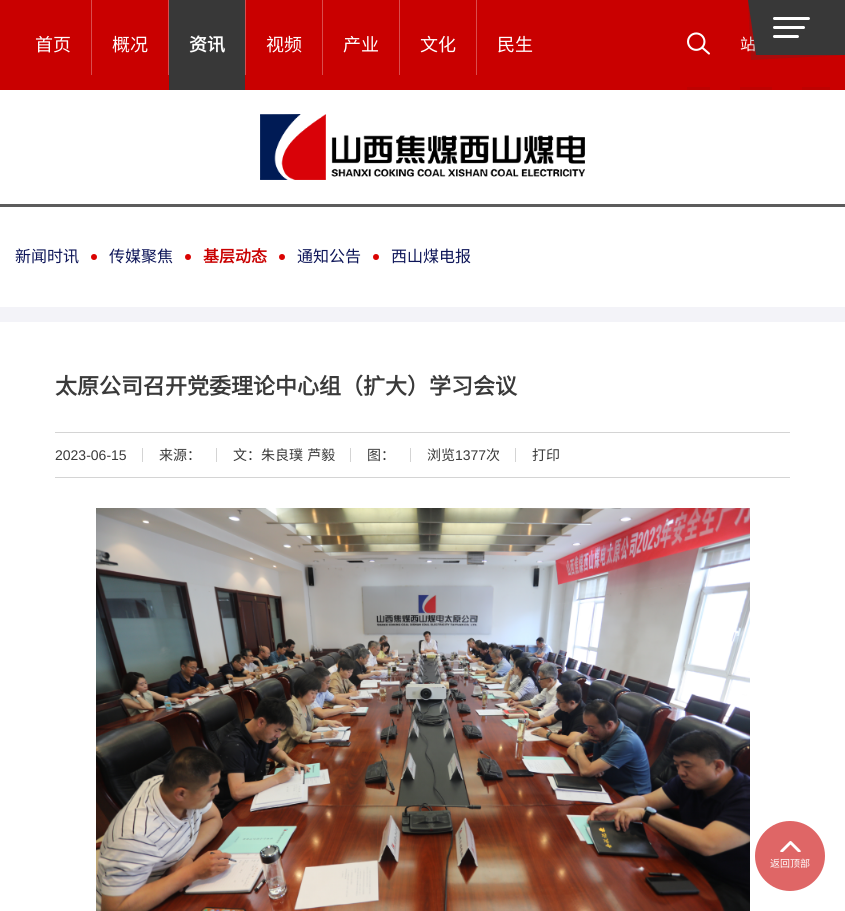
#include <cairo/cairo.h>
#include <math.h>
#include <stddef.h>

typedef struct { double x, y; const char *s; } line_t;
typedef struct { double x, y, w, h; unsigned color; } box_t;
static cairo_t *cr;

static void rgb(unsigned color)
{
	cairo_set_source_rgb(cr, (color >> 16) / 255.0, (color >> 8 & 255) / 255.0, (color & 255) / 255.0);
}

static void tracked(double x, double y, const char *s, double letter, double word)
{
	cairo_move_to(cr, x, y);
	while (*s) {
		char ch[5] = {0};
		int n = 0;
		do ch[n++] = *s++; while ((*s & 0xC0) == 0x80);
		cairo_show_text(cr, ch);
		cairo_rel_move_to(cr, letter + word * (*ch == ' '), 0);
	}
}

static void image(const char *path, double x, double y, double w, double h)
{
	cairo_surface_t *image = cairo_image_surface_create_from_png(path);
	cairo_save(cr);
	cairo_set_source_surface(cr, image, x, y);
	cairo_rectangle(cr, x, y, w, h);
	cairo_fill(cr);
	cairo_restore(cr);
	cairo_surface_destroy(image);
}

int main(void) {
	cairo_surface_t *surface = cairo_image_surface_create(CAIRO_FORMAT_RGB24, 845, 911);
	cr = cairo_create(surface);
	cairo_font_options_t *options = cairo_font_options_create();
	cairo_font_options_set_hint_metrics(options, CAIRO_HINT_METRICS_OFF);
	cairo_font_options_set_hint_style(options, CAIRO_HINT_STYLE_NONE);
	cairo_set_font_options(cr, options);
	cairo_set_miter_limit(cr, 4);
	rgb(0xf3f3f8);
	cairo_paint(cr);
	{
		static const box_t items[] = {
			{0, 90, 845, 217, 0xffffff},
			{0, 0, 845, 90, 0xc90000},
			{91, 0, 1, 75, 0xd94d4d},
			{168, 0, 1, 75, 0xd94d4d},
			{169, 0, 76, 90, 0x383838},
			{245, 0, 1, 75, 0xd94d4d},
			{322, 0, 1, 75, 0xd94d4d},
			{399, 0, 1, 75, 0xd94d4d},
			{476, 0, 1, 75, 0xd94d4d},
			{687, 87, 23, 3, 0xbe0201},
		};
		for (size_t i = 0; i < sizeof items / sizeof *items; i++) {
			rgb(items[i].color);
			cairo_rectangle(cr, items[i].x, items[i].y, items[i].w, items[i].h);
			cairo_fill(cr);
		}
	}
	image("img/1.png", 687, 32, 23, 23);
	cairo_rectangle(cr, 740, 87, 32, 3);
	cairo_fill(cr);
	cairo_rectangle(cr, 802, 87, 28, 3);
	cairo_fill(cr);
	image("img/3.png", 260, 114, 325, 66);
	rgb(0x5c5c5c);
	cairo_rectangle(cr, 0, 204, 845, 3);
	cairo_fill(cr);
	rgb(0xda0302);
	cairo_arc(cr, 94, 257, 3, 0, 2 * M_PI);
	cairo_fill(cr);
	cairo_arc(cr, 188, 257, 3, 0, 2 * M_PI);
	cairo_fill(cr);
	cairo_arc(cr, 282, 257, 3, 0, 2 * M_PI);
	cairo_fill(cr);
	cairo_arc(cr, 376, 257, 3, 0, 2 * M_PI);
	cairo_fill(cr);
	{
		static const box_t items[] = {
			{0, 322, 845, 589, 0xffffff},
			{55, 432, 735, 1, 0xd4d4d4},
			{142, 448, 1, 14, 0xd4d4d4},
			{216, 448, 1, 14, 0xd4d4d4},
			{350, 448, 1, 14, 0xd4d4d4},
			{410, 448, 1, 14, 0xd4d4d4},
			{515, 448, 1, 14, 0xd4d4d4},
			{55, 477, 735, 1, 0xd4d4d4},
		};
		for (size_t i = 0; i < sizeof items / sizeof *items; i++) {
			rgb(items[i].color);
			cairo_rectangle(cr, items[i].x, items[i].y, items[i].w, items[i].h);
			cairo_fill(cr);
		}
	}
	image("img/4.png", 96, 508, 654, 403);
	rgb(0xdf6666);
	cairo_arc(cr, 790, 856, 35, 0, 2 * M_PI);
	cairo_fill(cr);
	image("img/5.png", 780, 841, 21, 11);
	cairo_select_font_face(cr, "Noto Sans CJK SC", CAIRO_FONT_SLANT_NORMAL, CAIRO_FONT_WEIGHT_NORMAL);
	cairo_set_font_size(cr, 18);
	rgb(0xffffff);
	cairo_move_to(cr, 35, 51);
	cairo_show_text(cr, "首页");
	cairo_move_to(cr, 112, 51);
	cairo_show_text(cr, "概况");
	cairo_select_font_face(cr, "Noto Sans CJK SC", CAIRO_FONT_SLANT_NORMAL, CAIRO_FONT_WEIGHT_BOLD);
	cairo_move_to(cr, 189, 51);
	cairo_show_text(cr, "资讯");
	cairo_select_font_face(cr, "Noto Sans CJK SC", CAIRO_FONT_SLANT_NORMAL, CAIRO_FONT_WEIGHT_NORMAL);
	{
		static const line_t items[] = {
			{266, 51, "视频"},
			{343, 51, "产业"},
			{420, 51, "文化"},
			{497, 51, "民生"},
		};
		for (size_t i = 0; i < sizeof items / sizeof *items; i++) {
			cairo_move_to(cr, items[i].x, items[i].y);
			cairo_show_text(cr, items[i].s);
		}
	}
	cairo_set_font_size(cr, 16);
	cairo_move_to(cr, 740, 50);
	cairo_show_text(cr, "站");
	image("img/2.png", 748, 0, 97, 60);
	rgb(0x0d1558);
	cairo_move_to(cr, 15, 262);
	cairo_show_text(cr, "新闻时讯");
	cairo_move_to(cr, 109, 262);
	cairo_show_text(cr, "传媒聚焦");
	cairo_select_font_face(cr, "Noto Sans CJK SC", CAIRO_FONT_SLANT_NORMAL, CAIRO_FONT_WEIGHT_BOLD);
	rgb(0xc90000);
	cairo_move_to(cr, 203, 262);
	cairo_show_text(cr, "基层动态");
	cairo_select_font_face(cr, "Noto Sans CJK SC", CAIRO_FONT_SLANT_NORMAL, CAIRO_FONT_WEIGHT_NORMAL);
	rgb(0x0d1558);
	cairo_move_to(cr, 297, 262);
	cairo_show_text(cr, "通知公告");
	cairo_move_to(cr, 391, 262);
	cairo_show_text(cr, "西山煤电报");
	cairo_select_font_face(cr, "Noto Sans CJK SC", CAIRO_FONT_SLANT_NORMAL, CAIRO_FONT_WEIGHT_BOLD);
	cairo_set_font_size(cr, 22);
	rgb(0x3a3a3a);
	cairo_move_to(cr, 55, 394);
	cairo_show_text(cr, "太原公司召开党委理论中心组（扩大）学习会议");
	cairo_select_font_face(cr, "Liberation Sans", CAIRO_FONT_SLANT_NORMAL, CAIRO_FONT_WEIGHT_NORMAL);
	cairo_set_font_size(cr, 14);
	cairo_move_to(cr, 55, 460);
	cairo_show_text(cr, "2023-06-15");
	cairo_select_font_face(cr, "Noto Sans CJK SC", CAIRO_FONT_SLANT_NORMAL, CAIRO_FONT_WEIGHT_NORMAL);
	cairo_move_to(cr, 159, 460);
	cairo_show_text(cr, "来源：");
	tracked(233, 460, "文：朱良璞 芦毅", 0, 1);
	cairo_move_to(cr, 367, 460);
	cairo_show_text(cr, "图：");
	cairo_move_to(cr, 427, 460);
	cairo_show_text(cr, "浏览");
	cairo_select_font_face(cr, "Liberation Sans", CAIRO_FONT_SLANT_NORMAL, CAIRO_FONT_WEIGHT_NORMAL);
	cairo_move_to(cr, 455, 460);
	cairo_show_text(cr, "1377");
	cairo_select_font_face(cr, "Noto Sans CJK SC", CAIRO_FONT_SLANT_NORMAL, CAIRO_FONT_WEIGHT_NORMAL);
	cairo_move_to(cr, 486, 460);
	cairo_show_text(cr, "次");
	cairo_move_to(cr, 532, 460);
	cairo_show_text(cr, "打印");
	cairo_set_font_size(cr, 10);
	rgb(0xffffff);
	cairo_move_to(cr, 770, 867);
	cairo_show_text(cr, "返回顶部");
	cairo_surface_write_to_png(surface, "page.png");
	cairo_font_options_destroy(options);
	cairo_destroy(cr);
	cairo_surface_destroy(surface);
	return 0;
}
